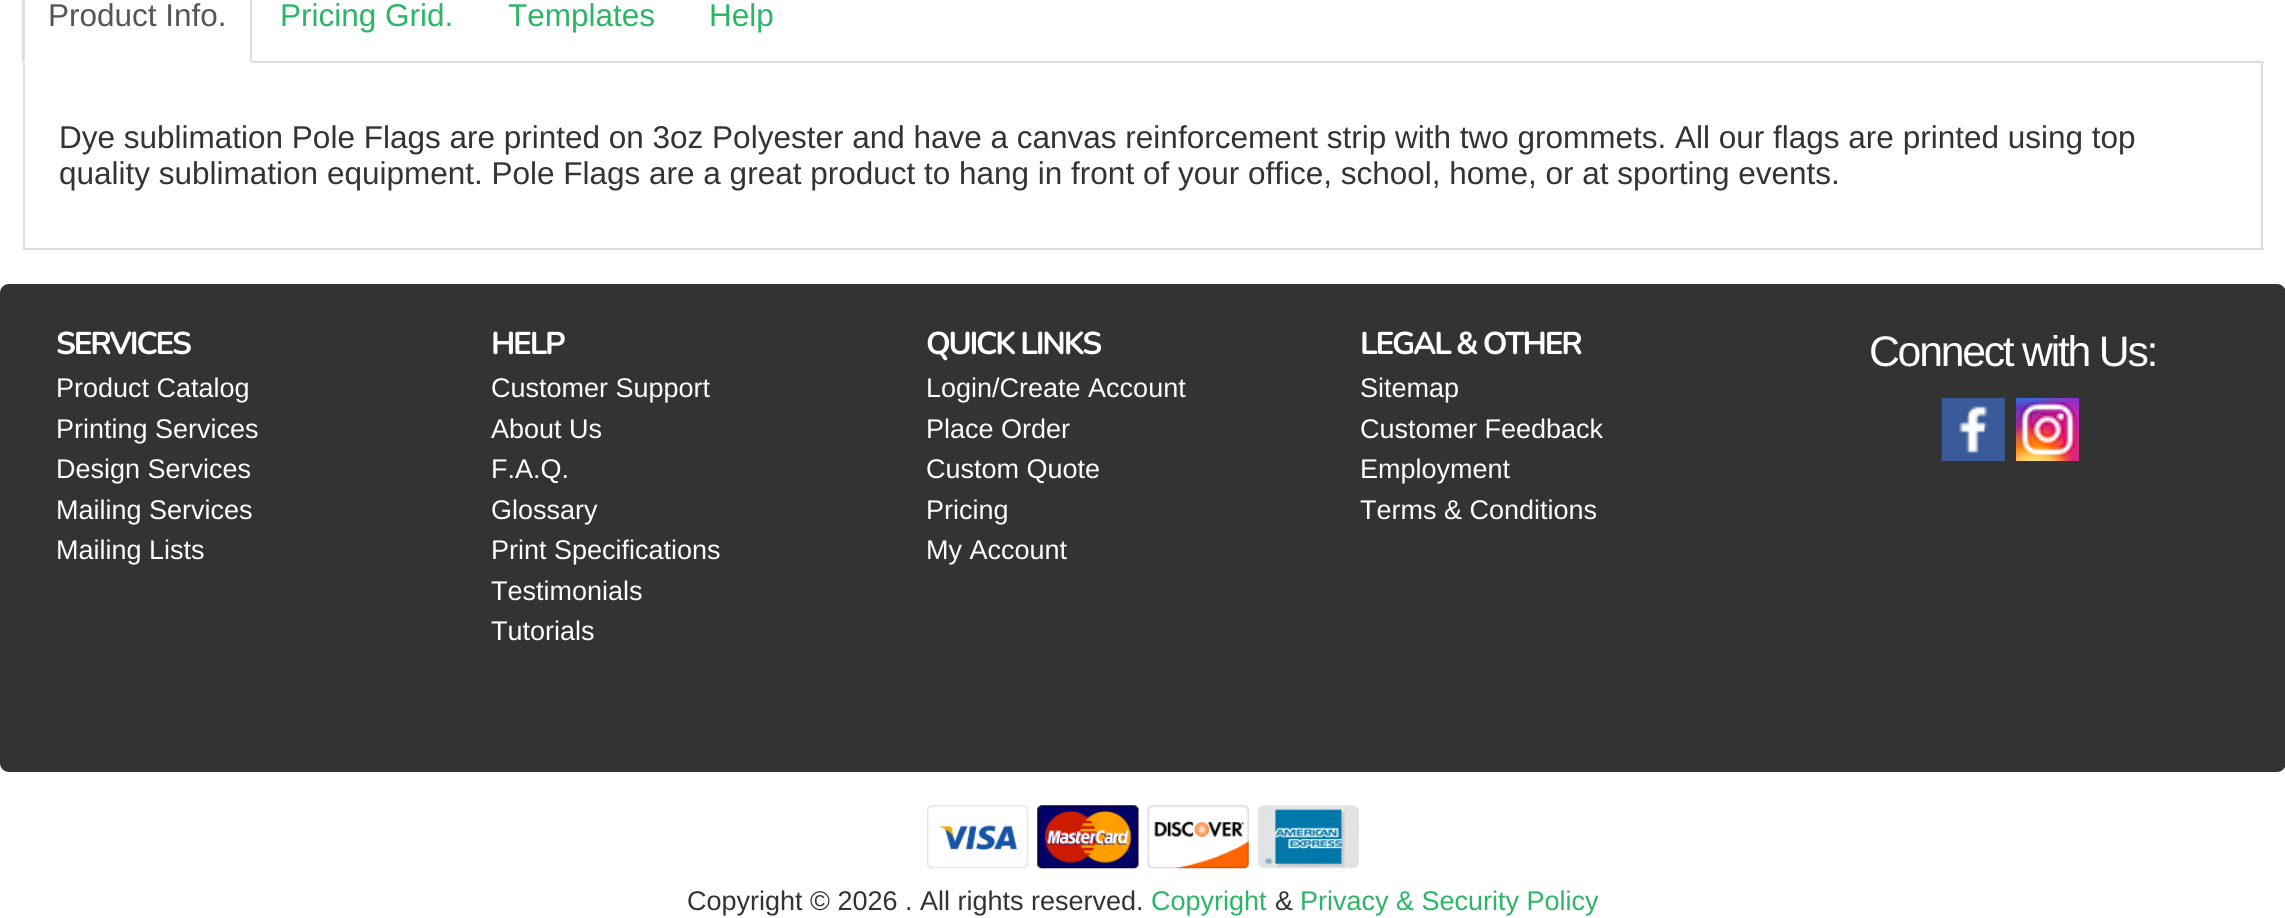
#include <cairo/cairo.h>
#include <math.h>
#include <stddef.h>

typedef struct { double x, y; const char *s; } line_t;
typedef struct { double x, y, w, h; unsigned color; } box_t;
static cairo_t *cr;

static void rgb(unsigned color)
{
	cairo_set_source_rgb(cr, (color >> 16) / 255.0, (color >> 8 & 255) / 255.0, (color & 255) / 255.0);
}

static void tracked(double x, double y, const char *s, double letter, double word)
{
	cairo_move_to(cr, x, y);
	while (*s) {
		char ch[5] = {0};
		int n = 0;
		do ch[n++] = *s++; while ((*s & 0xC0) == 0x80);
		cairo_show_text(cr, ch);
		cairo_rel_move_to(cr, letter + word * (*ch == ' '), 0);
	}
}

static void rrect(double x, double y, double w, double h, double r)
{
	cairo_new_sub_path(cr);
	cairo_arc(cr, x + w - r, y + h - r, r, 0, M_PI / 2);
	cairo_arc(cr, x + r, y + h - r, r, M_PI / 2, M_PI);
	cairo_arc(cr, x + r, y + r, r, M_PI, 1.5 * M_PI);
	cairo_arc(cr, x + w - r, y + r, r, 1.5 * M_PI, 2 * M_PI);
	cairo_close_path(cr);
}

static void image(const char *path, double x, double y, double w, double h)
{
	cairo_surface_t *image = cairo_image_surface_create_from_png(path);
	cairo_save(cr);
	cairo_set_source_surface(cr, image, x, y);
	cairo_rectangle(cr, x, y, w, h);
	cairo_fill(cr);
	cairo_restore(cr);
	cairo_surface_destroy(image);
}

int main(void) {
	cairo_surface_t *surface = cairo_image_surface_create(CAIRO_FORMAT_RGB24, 2285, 918);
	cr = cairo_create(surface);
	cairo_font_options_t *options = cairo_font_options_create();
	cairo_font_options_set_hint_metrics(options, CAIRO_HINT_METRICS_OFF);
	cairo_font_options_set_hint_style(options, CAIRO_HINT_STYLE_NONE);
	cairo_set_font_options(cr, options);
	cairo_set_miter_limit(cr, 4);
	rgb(0xffffff);
	cairo_paint(cr);
	rgb(0xdddddd);
	cairo_rectangle(cr, 252, 61, 2012, 2);
	cairo_fill(cr);
	cairo_new_path(cr);
	cairo_move_to(cr, 252, 63);
	cairo_line_to(cr, 252, -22);
	cairo_curve_to(cr, 252, -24, 251, -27, 249, -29);
	cairo_line_to(cr, 248, -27);
	cairo_line_to(cr, 250, -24);
	cairo_line_to(cr, 250, 61);
	cairo_close_path(cr);
	cairo_fill(cr);
	cairo_new_path(cr);
	cairo_move_to(cr, 22, 63);
	cairo_line_to(cr, 22, -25);
	cairo_line_to(cr, 25, -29);
	cairo_line_to(cr, 27, -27);
	cairo_curve_to(cr, 26, -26, 25, -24, 25, -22);
	cairo_line_to(cr, 25, 60);
	cairo_close_path(cr);
	cairo_fill(cr);
	{
		static const box_t items[] = {
			{2261, 63, 2, 187, 0xdddddd},
			{23, 248, 2241, 2, 0xdddddd},
			{23, 63, 2, 187, 0xdddddd},
		};
		for (size_t i = 0; i < sizeof items / sizeof *items; i++) {
			rgb(items[i].color);
			cairo_rectangle(cr, items[i].x, items[i].y, items[i].w, items[i].h);
			cairo_fill(cr);
		}
	}
	rgb(0x333333);
	rrect(0, 284, 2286, 488, 9);
	cairo_fill(cr);
	image("img/1.png", 1941, 398, 64, 63);
	image("img/2.png", 2016, 398, 63, 63);
	image("img/3.png", 927, 805, 102, 64);
	image("img/4.png", 1037, 805, 102, 64);
	image("img/5.png", 1147, 805, 102, 64);
	image("img/6.png", 1257, 805, 102, 64);
	cairo_select_font_face(cr, "Liberation Sans", CAIRO_FONT_SLANT_NORMAL, CAIRO_FONT_WEIGHT_NORMAL);
	cairo_set_font_size(cr, 31.5);
	rgb(0x555555);
	cairo_move_to(cr, 48, 26);
	cairo_show_text(cr, "Product Info.");
	rgb(0x2bb567);
	{
		static const line_t items[] = {
			{280, 26, "Pricing Grid."},
			{508, 26, "Templates"},
			{709, 26, "Help"},
		};
		for (size_t i = 0; i < sizeof items / sizeof *items; i++) {
			cairo_move_to(cr, items[i].x, items[i].y);
			cairo_show_text(cr, items[i].s);
		}
	}
	rgb(0x333333);
	cairo_move_to(cr, 59, 148);
	cairo_show_text(cr, "Dye sublimation Pole Flags are printed on 3oz Polyester and have a canvas reinforcement strip with two grommets. All our flags are printed using top");
	cairo_move_to(cr, 59, 184);
	cairo_show_text(cr, "quality sublimation equipment. Pole Flags are a great product to hang in front of your office, school, home, or at sporting events.");
	cairo_select_font_face(cr, "Nunito", CAIRO_FONT_SLANT_NORMAL, CAIRO_FONT_WEIGHT_BOLD);
	rgb(0xffffff);
	tracked(56, 354, "SERVICES", -2.25, 0);
	cairo_select_font_face(cr, "Liberation Sans", CAIRO_FONT_SLANT_NORMAL, CAIRO_FONT_WEIGHT_NORMAL);
	cairo_set_font_size(cr, 27);
	{
		static const line_t items[] = {
			{56, 397, "Product Catalog"},
			{56, 438, "Printing Services"},
			{56, 478, "Design Services"},
			{56, 519, "Mailing Services"},
			{56, 559, "Mailing Lists"},
		};
		for (size_t i = 0; i < sizeof items / sizeof *items; i++) {
			cairo_move_to(cr, items[i].x, items[i].y);
			cairo_show_text(cr, items[i].s);
		}
	}
	cairo_select_font_face(cr, "Nunito", CAIRO_FONT_SLANT_NORMAL, CAIRO_FONT_WEIGHT_BOLD);
	cairo_set_font_size(cr, 31.5);
	tracked(491, 354, "HELP", -2.25, 0);
	cairo_select_font_face(cr, "Liberation Sans", CAIRO_FONT_SLANT_NORMAL, CAIRO_FONT_WEIGHT_NORMAL);
	cairo_set_font_size(cr, 27);
	{
		static const line_t items[] = {
			{491, 397, "Customer Support"},
			{491, 438, "About Us"},
			{491, 478, "F.A.Q."},
			{491, 519, "Glossary"},
			{491, 559, "Print Specifications"},
			{491, 600, "Testimonials"},
			{491, 640, "Tutorials"},
		};
		for (size_t i = 0; i < sizeof items / sizeof *items; i++) {
			cairo_move_to(cr, items[i].x, items[i].y);
			cairo_show_text(cr, items[i].s);
		}
	}
	cairo_select_font_face(cr, "Nunito", CAIRO_FONT_SLANT_NORMAL, CAIRO_FONT_WEIGHT_BOLD);
	cairo_set_font_size(cr, 31.5);
	tracked(926, 354, "QUICK LINKS", -2.25, 0);
	cairo_select_font_face(cr, "Liberation Sans", CAIRO_FONT_SLANT_NORMAL, CAIRO_FONT_WEIGHT_NORMAL);
	cairo_set_font_size(cr, 27);
	{
		static const line_t items[] = {
			{926, 397, "Login/Create Account"},
			{926, 438, "Place Order"},
			{926, 478, "Custom Quote"},
			{926, 519, "Pricing"},
			{926, 559, "My Account"},
		};
		for (size_t i = 0; i < sizeof items / sizeof *items; i++) {
			cairo_move_to(cr, items[i].x, items[i].y);
			cairo_show_text(cr, items[i].s);
		}
	}
	cairo_select_font_face(cr, "Nunito", CAIRO_FONT_SLANT_NORMAL, CAIRO_FONT_WEIGHT_BOLD);
	cairo_set_font_size(cr, 31.5);
	tracked(1360, 354, "LEGAL & OTHER", -2.25, 0);
	cairo_select_font_face(cr, "Liberation Sans", CAIRO_FONT_SLANT_NORMAL, CAIRO_FONT_WEIGHT_NORMAL);
	cairo_set_font_size(cr, 27);
	{
		static const line_t items[] = {
			{1360, 397, "Sitemap"},
			{1360, 438, "Customer Feedback"},
			{1360, 478, "Employment"},
			{1360, 519, "Terms & Conditions"},
		};
		for (size_t i = 0; i < sizeof items / sizeof *items; i++) {
			cairo_move_to(cr, items[i].x, items[i].y);
			cairo_show_text(cr, items[i].s);
		}
	}
	cairo_set_font_size(cr, 42.75);
	tracked(1869, 366, "Connect with Us:", -2.25, 0);
	cairo_set_font_size(cr, 27);
	rgb(0x333333);
	cairo_move_to(cr, 687, 910);
	cairo_show_text(cr, "Copyright © 2026 . All rights reserved.");
	rgb(0x2bb567);
	cairo_move_to(cr, 1151, 910);
	cairo_show_text(cr, "Copyright");
	rgb(0x333333);
	cairo_move_to(cr, 1275, 910);
	cairo_show_text(cr, "&");
	rgb(0x2bb567);
	cairo_move_to(cr, 1300, 910);
	cairo_show_text(cr, "Privacy & Security Policy");
	cairo_surface_write_to_png(surface, "page.png");
	cairo_font_options_destroy(options);
	cairo_destroy(cr);
	cairo_surface_destroy(surface);
	return 0;
}
